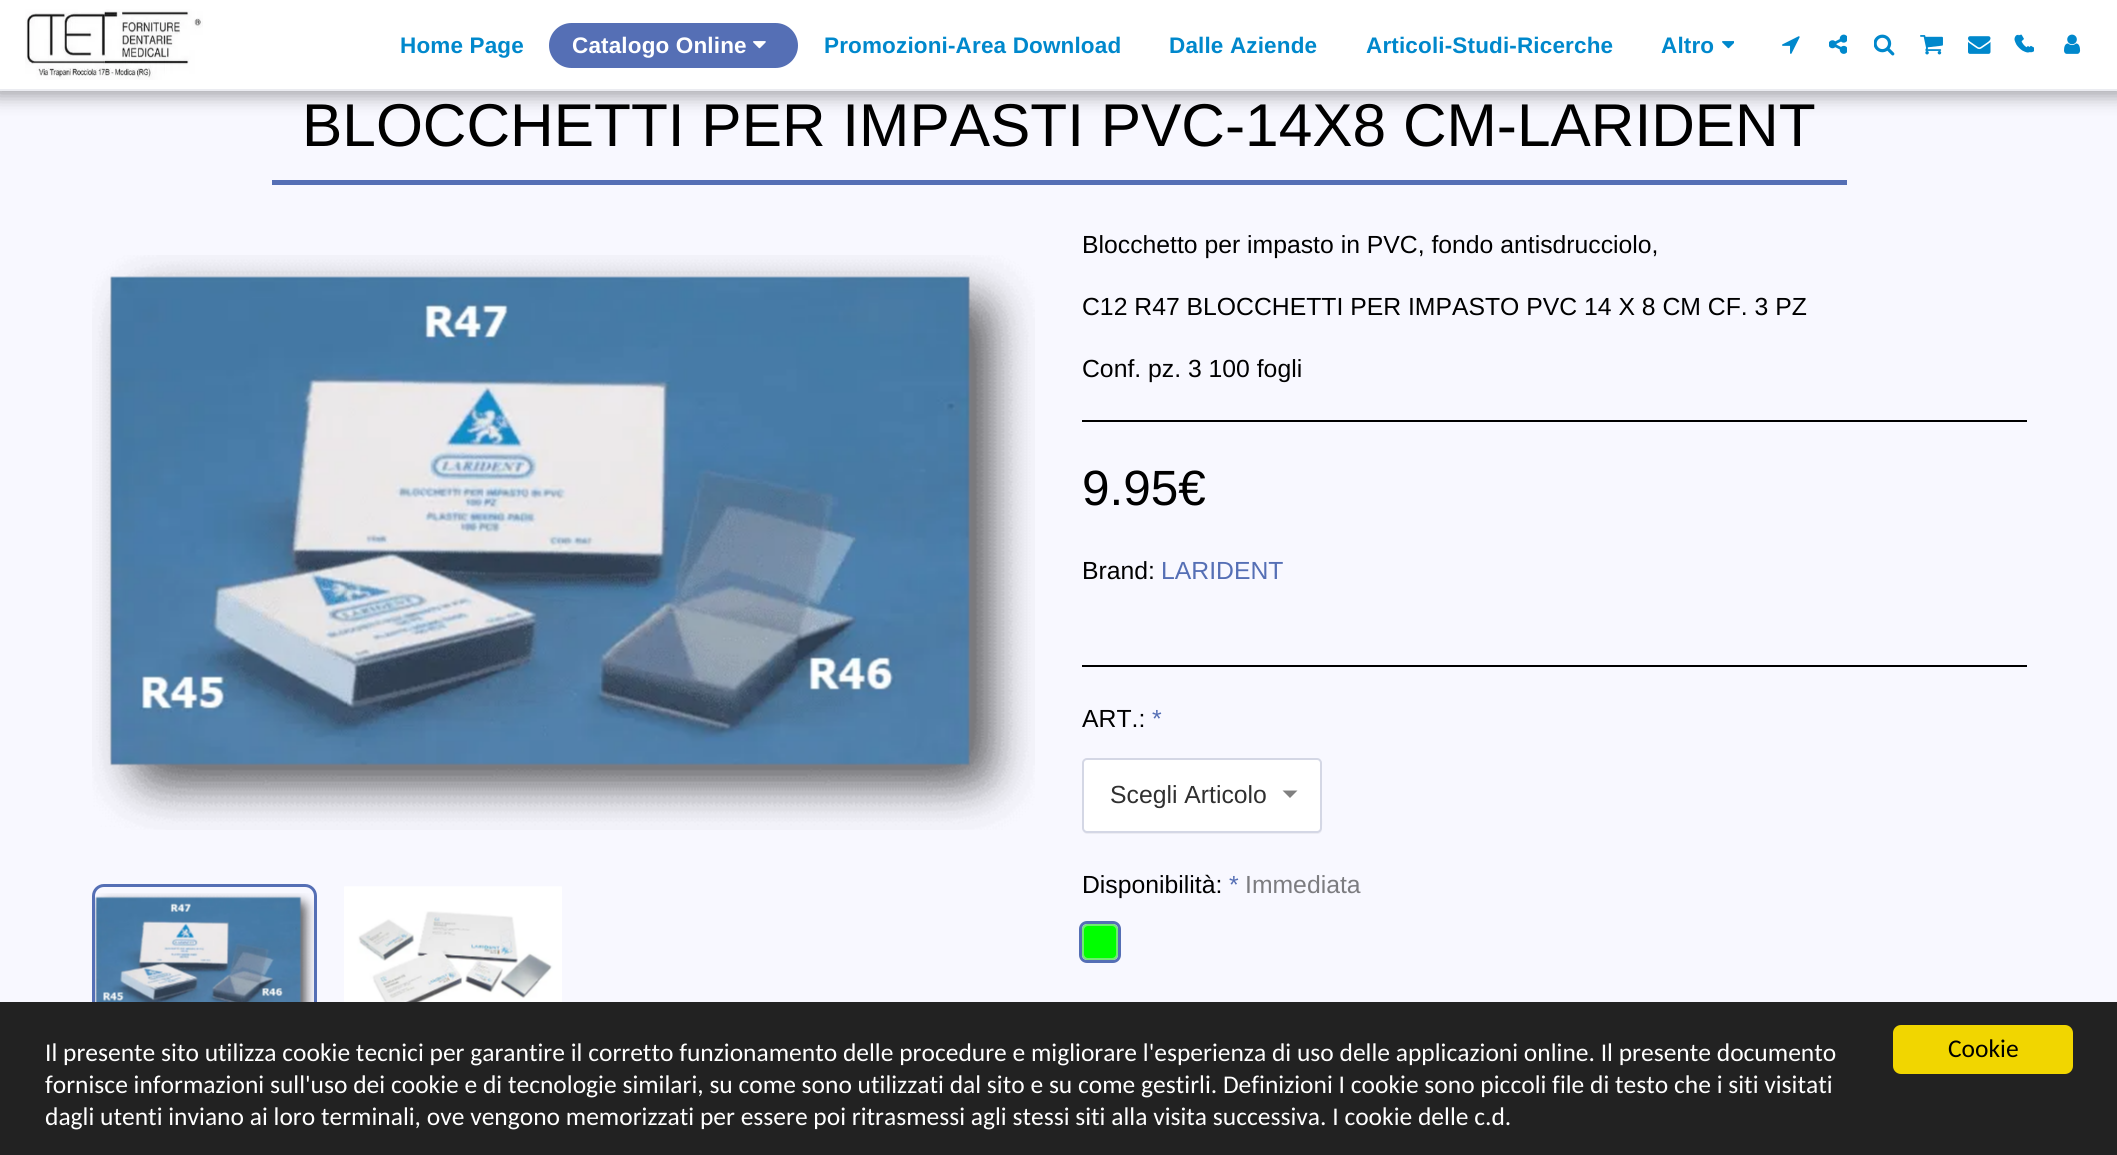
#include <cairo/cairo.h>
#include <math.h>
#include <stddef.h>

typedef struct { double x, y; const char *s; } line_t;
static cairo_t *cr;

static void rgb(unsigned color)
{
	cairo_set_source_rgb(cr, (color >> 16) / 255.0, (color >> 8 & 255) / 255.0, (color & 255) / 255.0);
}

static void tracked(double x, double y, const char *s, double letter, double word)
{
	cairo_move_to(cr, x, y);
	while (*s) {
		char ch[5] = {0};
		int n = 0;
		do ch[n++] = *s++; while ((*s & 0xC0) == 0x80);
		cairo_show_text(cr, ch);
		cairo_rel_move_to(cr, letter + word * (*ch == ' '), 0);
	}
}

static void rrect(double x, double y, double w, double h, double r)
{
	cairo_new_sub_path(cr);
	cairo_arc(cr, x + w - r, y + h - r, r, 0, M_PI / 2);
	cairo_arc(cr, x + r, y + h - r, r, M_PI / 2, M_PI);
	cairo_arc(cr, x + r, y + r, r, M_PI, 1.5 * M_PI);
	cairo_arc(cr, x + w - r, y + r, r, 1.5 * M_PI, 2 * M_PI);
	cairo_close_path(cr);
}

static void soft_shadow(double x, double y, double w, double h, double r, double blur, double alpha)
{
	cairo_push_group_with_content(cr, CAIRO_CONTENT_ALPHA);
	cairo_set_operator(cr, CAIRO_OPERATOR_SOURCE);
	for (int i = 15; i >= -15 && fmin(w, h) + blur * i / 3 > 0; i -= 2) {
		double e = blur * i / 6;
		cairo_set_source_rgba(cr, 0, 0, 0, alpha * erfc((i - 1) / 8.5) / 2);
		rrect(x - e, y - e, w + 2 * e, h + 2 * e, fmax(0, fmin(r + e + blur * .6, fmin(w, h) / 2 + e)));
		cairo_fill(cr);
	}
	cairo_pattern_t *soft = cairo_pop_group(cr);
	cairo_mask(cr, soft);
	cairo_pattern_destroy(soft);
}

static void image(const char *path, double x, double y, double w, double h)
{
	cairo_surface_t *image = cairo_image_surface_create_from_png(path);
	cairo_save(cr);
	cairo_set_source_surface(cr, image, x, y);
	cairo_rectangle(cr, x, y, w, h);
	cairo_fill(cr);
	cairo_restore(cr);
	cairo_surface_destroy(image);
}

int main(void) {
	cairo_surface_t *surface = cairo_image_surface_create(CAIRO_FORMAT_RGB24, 2117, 1155);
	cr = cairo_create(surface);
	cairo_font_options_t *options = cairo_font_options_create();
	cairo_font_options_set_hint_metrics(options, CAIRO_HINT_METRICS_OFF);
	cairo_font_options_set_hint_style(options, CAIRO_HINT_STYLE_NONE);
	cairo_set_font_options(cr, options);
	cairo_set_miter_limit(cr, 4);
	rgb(0xf8f8ff);
	cairo_paint(cr);
	rgb(0x000000);
	soft_shadow(-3, 0, 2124, 96, 0, 9, 0.35);
	rgb(0xffffff);
	cairo_rectangle(cr, 0, 0, 2117, 89);
	cairo_fill(cr);
	rgb(0xebecf1);
	cairo_rectangle(cr, 0, 89, 2117, 2);
	cairo_fill(cr);
	image("img/1.png", 25, 9, 178, 71);
	rgb(0x556fb5);
	rrect(549, 23, 249, 45, 22.5);
	cairo_fill(cr);
	image("img/2.png", 753, 41, 13, 8);
	image("img/3.png", 1722, 41, 12, 8);
	image("img/4.png", 1782, 36, 18, 18);
	image("img/5.png", 1829, 34, 18, 20);
	image("img/6.png", 1874, 34, 21, 22);
	image("img/7.png", 1920, 35, 23, 20);
	image("img/8.png", 1968, 36, 23, 18);
	image("img/9.png", 2018, 34, 16, 19);
	image("img/10.png", 2014, 34, 16, 19);
	image("img/11.png", 2064, 34, 17, 20);
	cairo_rectangle(cr, 272, 180, 1575, 5);
	cairo_fill(cr);
	image("img/12.png", 92, 255, 943, 575);
	image("img/13.png", 95, 893, 219, 109);
	rrect(93.5, 885.5, 222, 153, 10.5);
	cairo_set_line_width(cr, 3);
	cairo_stroke(cr);
	image("img/14.png", 344, 886, 218, 116);
	rgb(0x000000);
	cairo_rectangle(cr, 1082, 420, 945, 2);
	cairo_fill(cr);
	cairo_rectangle(cr, 1082, 665, 945, 2);
	cairo_fill(cr);
	cairo_set_source_rgba(cr, 0, 0, 0, 0.05);
	cairo_new_path(cr);
	cairo_move_to(cr, 1082, 830);
	cairo_curve_to(cr, 1083, 832, 1085, 834, 1087, 834);
	cairo_line_to(cr, 1317, 834);
	cairo_curve_to(cr, 1320, 834, 1322, 832, 1322, 829);
	cairo_line_to(cr, 1322, 764);
	cairo_line_to(cr, 1321, 762);
	cairo_line_to(cr, 1322, 817);
	cairo_curve_to(cr, 1322, 820, 1324, 832, 1317, 832);
	cairo_line_to(cr, 1086, 832);
	cairo_curve_to(cr, 1084, 832, 1083, 832, 1082, 830);
	cairo_close_path(cr);
	cairo_fill(cr);
	rgb(0xffffff);
	rrect(1083, 759, 238, 73, 4);
	cairo_fill_preserve(cr);
	rgb(0xd4d7e5);
	cairo_set_line_width(cr, 2);
	cairo_stroke(cr);
	rgb(0x808080);
	cairo_new_path(cr);
	cairo_move_to(cr, 1282.5, 790.5);
	cairo_line_to(cr, 1297.5, 790.5);
	cairo_line_to(cr, 1290, 798);
	cairo_close_path(cr);
	cairo_fill(cr);
	rgb(0x00ff00);
	rrect(1082, 924, 36, 36, 6);
	cairo_fill(cr);
	rrect(1083, 925, 34, 34, 5);
	cairo_set_source_rgba(cr, 0.867, 0.867, 0.867, 0.5);
	cairo_stroke(cr);
	rrect(1080.5, 922.5, 39, 39, 6.5);
	rgb(0x556fb5);
	cairo_set_line_width(cr, 3);
	cairo_stroke(cr);
	rgb(0x222222);
	cairo_rectangle(cr, 0, 1002, 2117, 153);
	cairo_fill(cr);
	rgb(0xf1d600);
	rrect(1893, 1025, 180, 49, 8);
	cairo_fill(cr);
	cairo_select_font_face(cr, "Liberation Sans", CAIRO_FONT_SLANT_NORMAL, CAIRO_FONT_WEIGHT_BOLD);
	cairo_set_font_size(cr, 22.5);
	rgb(0x0088cc);
	tracked(400, 53, "Home Page", 0.15, 0);
	rgb(0xffffff);
	tracked(572, 53, "Catalogo Online", 0.15, 0);
	rgb(0x0088cc);
	{
		static const line_t items[] = {
			{824, 53, "Promozioni-Area Download"},
			{1169, 53, "Dalle Aziende"},
			{1366, 53, "Articoli-Studi-Ricerche"},
			{1661, 53, "Altro"},
		};
		for (size_t i = 0; i < sizeof items / sizeof *items; i++) {
			tracked(items[i].x, items[i].y, items[i].s, 0.15, 0);
		}
	}
	cairo_select_font_face(cr, "Liberation Sans", CAIRO_FONT_SLANT_NORMAL, CAIRO_FONT_WEIGHT_NORMAL);
	cairo_set_font_size(cr, 60.4);
	rgb(0x000000);
	cairo_move_to(cr, 302, 146);
	cairo_show_text(cr, "BLOCCHETTI PER IMPASTI PVC-14X8 CM-LARIDENT");
	cairo_set_font_size(cr, 24.75);
	{
		static const line_t items[] = {
			{1082, 253, "Blocchetto per impasto in PVC, fondo antisdrucciolo,"},
			{1082, 315, "C12 R47 BLOCCHETTI PER IMPASTO PVC 14 X 8 CM CF. 3 PZ"},
			{1082, 377, "Conf. pz. 3 100 fogli"},
		};
		for (size_t i = 0; i < sizeof items / sizeof *items; i++) {
			cairo_move_to(cr, items[i].x, items[i].y);
			cairo_show_text(cr, items[i].s);
		}
	}
	cairo_set_font_size(cr, 49.5);
	cairo_move_to(cr, 1082, 505);
	cairo_show_text(cr, "9.95€");
	cairo_set_font_size(cr, 24.75);
	cairo_move_to(cr, 1082, 579);
	cairo_show_text(cr, "Brand:");
	rgb(0x556fb5);
	cairo_move_to(cr, 1161, 579);
	cairo_show_text(cr, "LARIDENT");
	rgb(0x000000);
	cairo_move_to(cr, 1082, 727);
	cairo_show_text(cr, "ART.:");
	rgb(0x556fb5);
	cairo_move_to(cr, 1152, 727);
	cairo_show_text(cr, "*");
	rgb(0x303030);
	cairo_move_to(cr, 1110, 803);
	cairo_show_text(cr, "Scegli Articolo");
	rgb(0x000000);
	cairo_move_to(cr, 1082, 893);
	cairo_show_text(cr, "Disponibilità:");
	rgb(0x556fb5);
	cairo_move_to(cr, 1229, 893);
	cairo_show_text(cr, "*");
	rgb(0x7c7c80);
	cairo_move_to(cr, 1245, 893);
	cairo_show_text(cr, "Immediata");
	cairo_select_font_face(cr, "Carlito", CAIRO_FONT_SLANT_NORMAL, CAIRO_FONT_WEIGHT_NORMAL);
	cairo_set_font_size(cr, 25.5);
	rgb(0xffffff);
	{
		static const line_t items[] = {
			{45, 1061, "Il presente sito utilizza cookie tecnici per garantire il corretto funzionamento delle procedure e migliorare l'esperienza di uso delle applicazioni online. Il presente documento"},
			{45, 1093, "fornisce informazioni sull'uso dei cookie e di tecnologie similari, su come sono utilizzati dal sito e su come gestirli. Definizioni I cookie sono piccoli file di testo che i siti visitati"},
			{45, 1125, "dagli utenti inviano ai loro terminali, ove vengono memorizzati per essere poi ritrasmessi agli stessi siti alla visita successiva. I cookie delle c.d."},
		};
		for (size_t i = 0; i < sizeof items / sizeof *items; i++) {
			cairo_move_to(cr, items[i].x, items[i].y);
			cairo_show_text(cr, items[i].s);
		}
	}
	rgb(0x000000);
	cairo_move_to(cr, 1948, 1057);
	cairo_show_text(cr, "Cookie");
	cairo_surface_write_to_png(surface, "page.png");
	cairo_font_options_destroy(options);
	cairo_destroy(cr);
	cairo_surface_destroy(surface);
	return 0;
}
